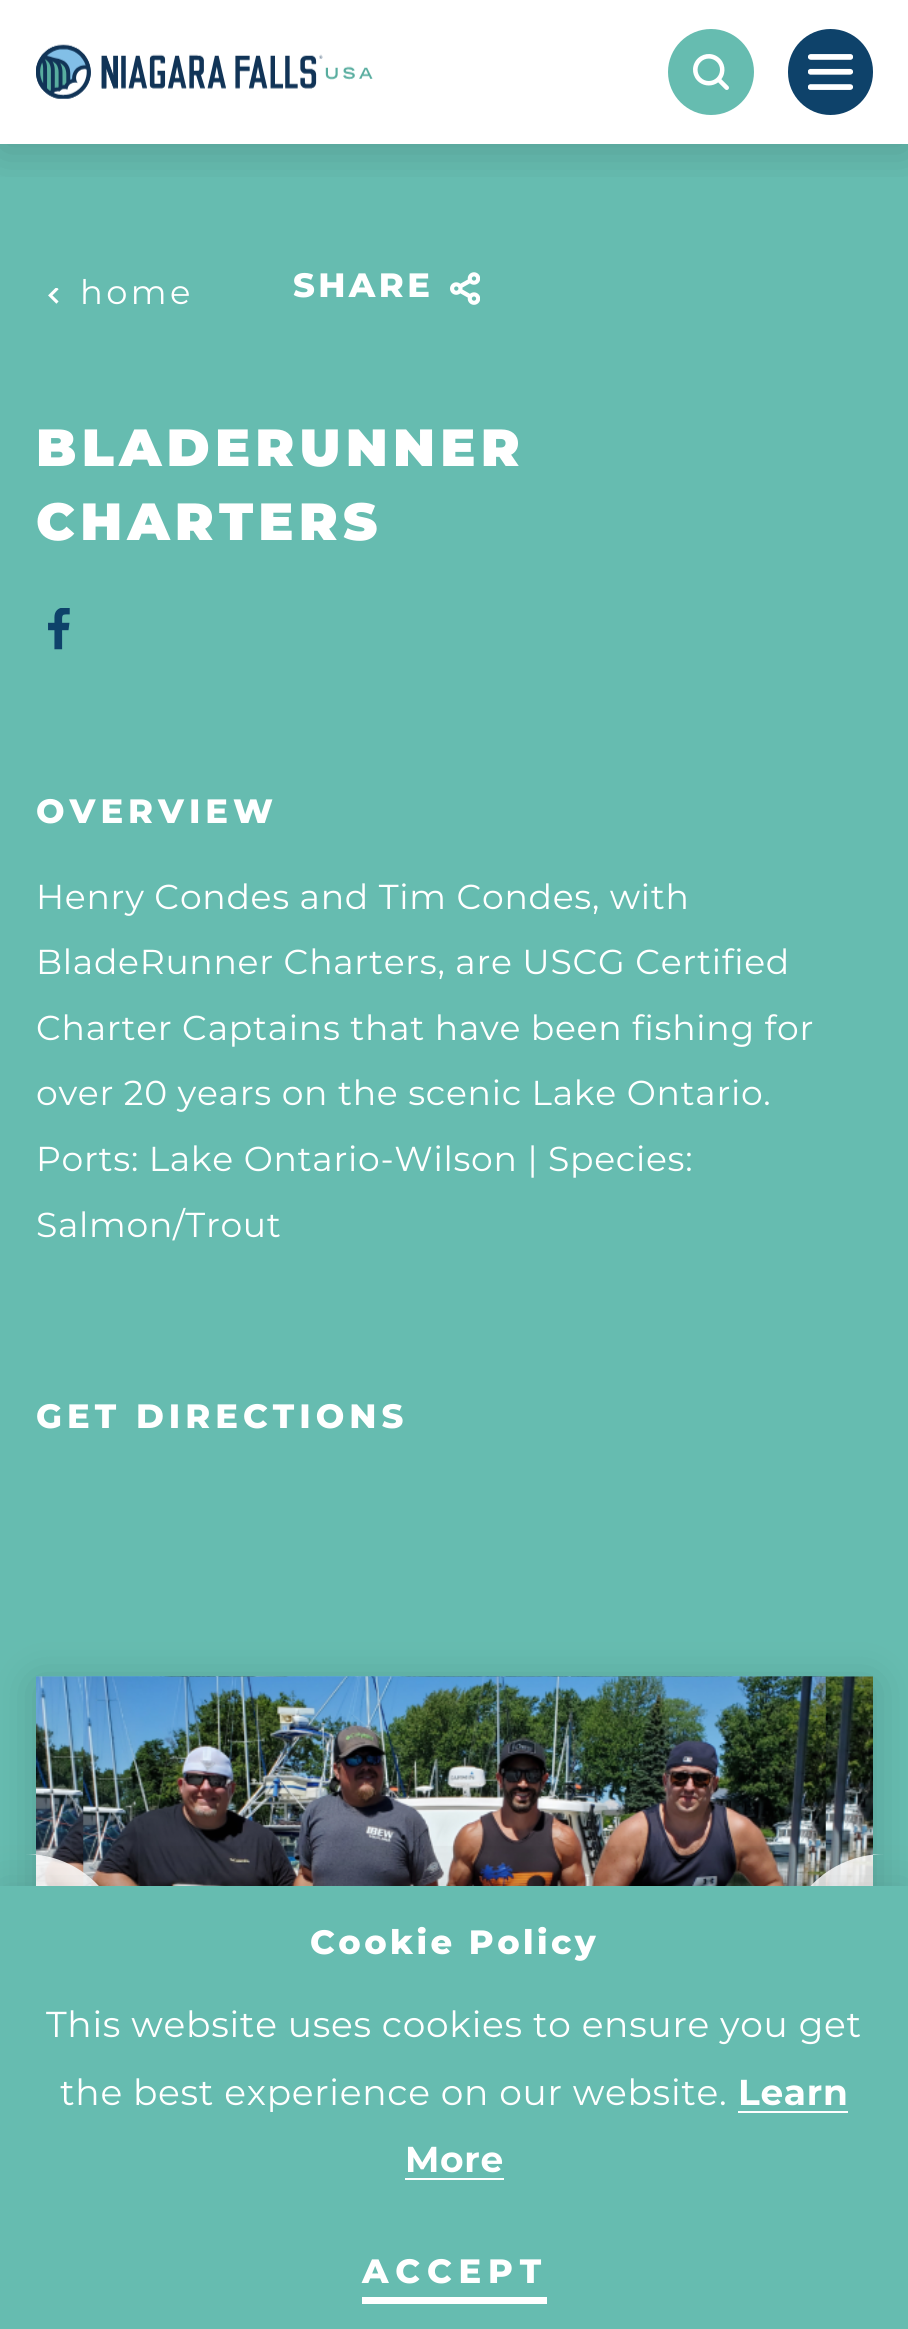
#include <cairo/cairo.h>
#include <math.h>
#include <stddef.h>

typedef struct { double x, y; const char *s; } line_t;
typedef struct { double x, y, w, h; unsigned color; } box_t;
static cairo_t *cr;

static void rgb(unsigned color)
{
	cairo_set_source_rgb(cr, (color >> 16) / 255.0, (color >> 8 & 255) / 255.0, (color & 255) / 255.0);
}

static void tracked(double x, double y, const char *s, double letter, double word)
{
	cairo_move_to(cr, x, y);
	while (*s) {
		char ch[5] = {0};
		int n = 0;
		do ch[n++] = *s++; while ((*s & 0xC0) == 0x80);
		cairo_show_text(cr, ch);
		cairo_rel_move_to(cr, letter + word * (*ch == ' '), 0);
	}
}

static void rrect(double x, double y, double w, double h, double r)
{
	cairo_new_sub_path(cr);
	cairo_arc(cr, x + w - r, y + h - r, r, 0, M_PI / 2);
	cairo_arc(cr, x + r, y + h - r, r, M_PI / 2, M_PI);
	cairo_arc(cr, x + r, y + r, r, M_PI, 1.5 * M_PI);
	cairo_arc(cr, x + w - r, y + r, r, 1.5 * M_PI, 2 * M_PI);
	cairo_close_path(cr);
}

static void soft_shadow(double x, double y, double w, double h, double r, double blur, double alpha)
{
	cairo_push_group_with_content(cr, CAIRO_CONTENT_ALPHA);
	cairo_set_operator(cr, CAIRO_OPERATOR_SOURCE);
	for (int i = 15; i >= -15 && fmin(w, h) + blur * i / 3 > 0; i -= 2) {
		double e = blur * i / 6;
		cairo_set_source_rgba(cr, 0, 0, 0, alpha * erfc((i - 1) / 8.5) / 2);
		rrect(x - e, y - e, w + 2 * e, h + 2 * e, fmax(0, fmin(r + e + blur * .6, fmin(w, h) / 2 + e)));
		cairo_fill(cr);
	}
	cairo_pattern_t *soft = cairo_pop_group(cr);
	cairo_mask(cr, soft);
	cairo_pattern_destroy(soft);
}

static void image(const char *path, double x, double y, double w, double h)
{
	cairo_surface_t *image = cairo_image_surface_create_from_png(path);
	cairo_save(cr);
	cairo_set_source_surface(cr, image, x, y);
	cairo_rectangle(cr, x, y, w, h);
	cairo_fill(cr);
	cairo_restore(cr);
	cairo_surface_destroy(image);
}

int main(void) {
	cairo_surface_t *surface = cairo_image_surface_create(CAIRO_FORMAT_RGB24, 908, 2329);
	cr = cairo_create(surface);
	cairo_font_options_t *options = cairo_font_options_create();
	cairo_font_options_set_hint_metrics(options, CAIRO_HINT_METRICS_OFF);
	cairo_font_options_set_hint_style(options, CAIRO_HINT_STYLE_NONE);
	cairo_set_font_options(cr, options);
	cairo_set_miter_limit(cr, 4);
	cairo_pattern_t *gradient;
	rgb(0xffffff);
	cairo_paint(cr);
	rgb(0x66bcb0);
	cairo_rectangle(cr, 0, 144, 908, 1742);
	cairo_fill(cr);
	cairo_save(cr);
	cairo_rectangle(cr, 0, 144, 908, 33);
	cairo_clip(cr);
	rgb(0x000000);
	soft_shadow(0, 7, 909, 144, 0, 22.5, 0.16);
	cairo_restore(cr);
	image("img/1.png", 36, 44, 337, 55);
	cairo_arc(cr, 711, 72, 43, 0, 2 * M_PI);
	cairo_fill(cr);
	image("img/2.png", 693, 54, 36, 36);
	rgb(0x0e426a);
	rrect(788, 29, 85, 86, 42.5);
	cairo_fill(cr);
	image("img/3.png", 808, 54, 45, 36);
	image("img/4.png", 48, 288, 11, 16);
	image("img/5.png", 450, 272, 30, 33);
	image("img/6.png", 48, 608, 22, 42);
	rgb(0x000000);
	soft_shadow(36, 1683, 837, 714, 0, 22.5, 0.16);
	rgb(0x66bcb0);
	cairo_rectangle(cr, 36, 1676, 837, 1);
	cairo_fill(cr);
	image("img/7.png", 36, 1676, 837, 210);
	image("img/8.png", 83, 1676, 743, 210);
	gradient = cairo_pattern_create_linear(455, 1816, 455, 2234);
	cairo_pattern_add_color_stop_rgba(gradient, 0, 0, 0, 0, 0);
	cairo_pattern_add_color_stop_rgba(gradient, 1, 0, 0, 0, 0.3);
	cairo_set_source(cr, gradient);
	cairo_pattern_destroy(gradient);
	cairo_rectangle(cr, 36, 1846, 837, 40);
	cairo_fill(cr);
	cairo_set_source_rgba(cr, 1, 1, 1, 0.85);
	cairo_new_path(cr);
	cairo_move_to(cr, 36, 1854);
	cairo_line_to(cr, 25, 1854);
	cairo_curve_to(cr, 81, 1854, 126, 1899, 126, 1955);
	cairo_line_to(cr, 126, 1956);
	cairo_curve_to(cr, 126, 2012, 81, 2057, 25, 2057);
	cairo_line_to(cr, 36, 2057);
	cairo_close_path(cr);
	cairo_fill(cr);
	cairo_new_path(cr);
	cairo_move_to(cr, 884.5, 1854);
	cairo_line_to(cr, 873, 1854);
	cairo_line_to(cr, 873, 2057);
	cairo_line_to(cr, 884.5, 2057);
	cairo_curve_to(cr, 828.5, 2057, 783, 2011.5, 783, 1955.5);
	cairo_curve_to(cr, 783, 1899.5, 828.5, 1854, 884.5, 1854);
	cairo_close_path(cr);
	cairo_fill(cr);
	rgb(0x000000);
	soft_shadow(0, 1886, 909, 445, 0, 22.5, 0.1);
	{
		static const box_t items[] = {
			{0, 1886, 908, 443, 0x66bcb0},
			{738, 2111, 110, 2, 0xffffff},
			{405, 2178, 99, 2, 0xffffff},
			{362, 2297, 185, 7, 0xffffff},
		};
		for (size_t i = 0; i < sizeof items / sizeof *items; i++) {
			rgb(items[i].color);
			cairo_rectangle(cr, items[i].x, items[i].y, items[i].w, items[i].h);
			cairo_fill(cr);
		}
	}
	cairo_select_font_face(cr, "Montserrat", CAIRO_FONT_SLANT_NORMAL, CAIRO_FONT_WEIGHT_NORMAL);
	cairo_set_font_size(cr, 33.75);
	tracked(80, 304, "home", 3.4, 0);
	cairo_select_font_face(cr, "Montserrat ExtraBold", CAIRO_FONT_SLANT_NORMAL, CAIRO_FONT_WEIGHT_NORMAL);
	tracked(293, 297, "SHARE", 3.4, 0);
	cairo_select_font_face(cr, "Montserrat Black", CAIRO_FONT_SLANT_NORMAL, CAIRO_FONT_WEIGHT_NORMAL);
	cairo_set_font_size(cr, 52.25);
	tracked(36, 466, "BLADERUNNER", 5.25, 0);
	tracked(36, 540, "CHARTERS", 5.25, 0);
	cairo_select_font_face(cr, "Montserrat ExtraBold", CAIRO_FONT_SLANT_NORMAL, CAIRO_FONT_WEIGHT_NORMAL);
	cairo_set_font_size(cr, 33.75);
	tracked(36, 823, "OVERVIEW", 5, 0);
	cairo_select_font_face(cr, "Montserrat", CAIRO_FONT_SLANT_NORMAL, CAIRO_FONT_WEIGHT_NORMAL);
	cairo_set_font_size(cr, 34.6);
	{
		static const line_t items[] = {
			{36, 909, "Henry Condes and Tim Condes, with"},
			{36, 974, "BladeRunner Charters, are USCG Certified"},
			{36, 1040, "Charter Captains that have been fishing for"},
			{36, 1105, "over 20 years on the scenic Lake Ontario."},
			{36, 1171, "Ports: Lake Ontario-Wilson | Species:"},
			{36, 1237, "Salmon/Trout"},
		};
		for (size_t i = 0; i < sizeof items / sizeof *items; i++) {
			tracked(items[i].x, items[i].y, items[i].s, 0.7, 0);
		}
	}
	cairo_select_font_face(cr, "Montserrat ExtraBold", CAIRO_FONT_SLANT_NORMAL, CAIRO_FONT_WEIGHT_NORMAL);
	cairo_set_font_size(cr, 33.75);
	tracked(36, 1428, "GET DIRECTIONS", 5, 0);
	tracked(310, 1954, "Cookie Policy", 3.4, 0);
	cairo_select_font_face(cr, "Montserrat", CAIRO_FONT_SLANT_NORMAL, CAIRO_FONT_WEIGHT_NORMAL);
	cairo_set_font_size(cr, 36);
	tracked(46, 2037, "This website uses cookies to ensure you get", 0.7, 0);
	tracked(60, 2105, "the best experience on our website.", 0.7, 0);
	cairo_select_font_face(cr, "Montserrat", CAIRO_FONT_SLANT_NORMAL, CAIRO_FONT_WEIGHT_BOLD);
	tracked(738, 2105, "Learn", 0.7, 0);
	tracked(405, 2172, "More", 0.7, 0);
	cairo_select_font_face(cr, "Montserrat ExtraBold", CAIRO_FONT_SLANT_NORMAL, CAIRO_FONT_WEIGHT_NORMAL);
	cairo_set_font_size(cr, 33.75);
	tracked(362, 2283, "ACCEPT", 6.75, 0);
	cairo_surface_write_to_png(surface, "page.png");
	cairo_font_options_destroy(options);
	cairo_destroy(cr);
	cairo_surface_destroy(surface);
	return 0;
}
